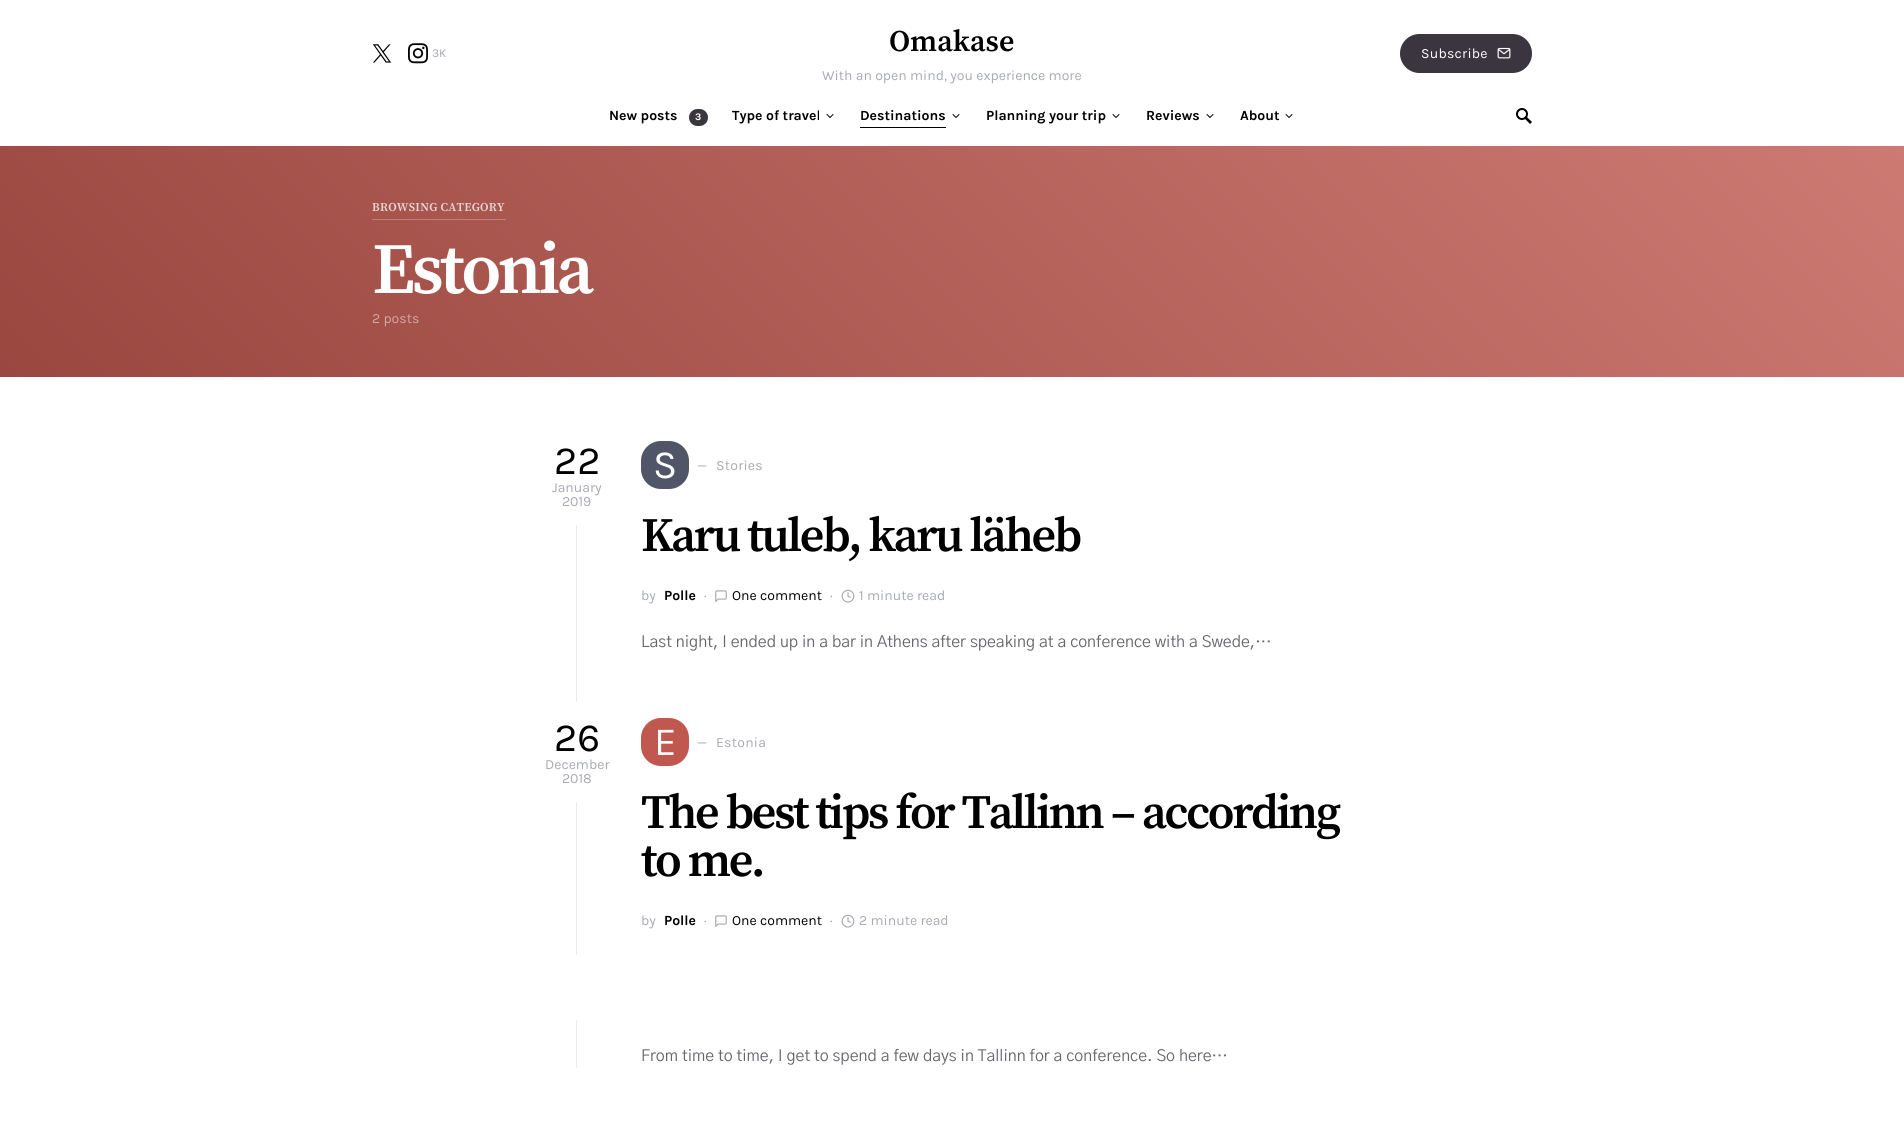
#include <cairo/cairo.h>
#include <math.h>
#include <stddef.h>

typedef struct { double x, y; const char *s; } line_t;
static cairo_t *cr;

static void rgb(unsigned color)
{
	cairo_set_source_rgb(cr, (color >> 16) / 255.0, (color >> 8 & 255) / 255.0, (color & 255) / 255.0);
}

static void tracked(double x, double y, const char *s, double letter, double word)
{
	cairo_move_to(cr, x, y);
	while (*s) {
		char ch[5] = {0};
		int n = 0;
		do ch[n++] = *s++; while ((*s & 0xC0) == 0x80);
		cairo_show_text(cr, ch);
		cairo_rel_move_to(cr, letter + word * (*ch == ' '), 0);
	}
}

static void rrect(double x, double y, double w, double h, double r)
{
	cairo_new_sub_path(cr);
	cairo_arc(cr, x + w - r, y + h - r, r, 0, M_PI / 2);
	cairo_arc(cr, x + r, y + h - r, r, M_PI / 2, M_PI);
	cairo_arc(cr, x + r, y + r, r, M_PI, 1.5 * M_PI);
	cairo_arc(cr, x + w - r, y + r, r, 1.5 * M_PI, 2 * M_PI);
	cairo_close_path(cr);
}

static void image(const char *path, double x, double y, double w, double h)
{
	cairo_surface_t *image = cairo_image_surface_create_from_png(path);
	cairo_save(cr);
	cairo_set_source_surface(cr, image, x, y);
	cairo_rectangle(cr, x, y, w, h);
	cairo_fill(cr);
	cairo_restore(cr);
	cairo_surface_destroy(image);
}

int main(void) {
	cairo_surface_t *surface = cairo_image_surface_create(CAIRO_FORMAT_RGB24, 1904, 1142);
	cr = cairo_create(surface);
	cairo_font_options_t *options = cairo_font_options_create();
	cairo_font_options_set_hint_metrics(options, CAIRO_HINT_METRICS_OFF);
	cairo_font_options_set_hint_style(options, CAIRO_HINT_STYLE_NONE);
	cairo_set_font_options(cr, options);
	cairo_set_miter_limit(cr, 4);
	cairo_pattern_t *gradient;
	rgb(0xffffff);
	cairo_paint(cr);
	image("img/1.png", 373, 44, 18, 19);
	image("img/2.png", 408, 43, 20, 21);
	rgb(0x3a353f);
	rrect(1400, 34, 132, 39, 19.5);
	cairo_fill(cr);
	image("img/3.png", 1497, 47, 14, 12);
	rrect(689, 109, 19, 17, 8.5);
	cairo_fill(cr);
	image("img/4.png", 826, 114, 8, 4);
	rgb(0x000000);
	cairo_rectangle(cr, 860, 127, 86, 1);
	cairo_fill(cr);
	image("img/4.png", 952, 114, 8, 4);
	image("img/4.png", 1112, 114, 8, 4);
	image("img/4.png", 1206, 114, 8, 4);
	image("img/4.png", 1285, 114, 8, 4);
	image("img/5.png", 1516, 108, 16, 16);
	gradient = cairo_pattern_create_linear(418, 795, 1486, -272);
	cairo_pattern_add_color_stop_rgba(gradient, 0, 0.604, 0.278, 0.251, 1);
	cairo_pattern_add_color_stop_rgba(gradient, 1, 0.804, 0.478, 0.451, 1);
	cairo_set_source(cr, gradient);
	cairo_pattern_destroy(gradient);
	cairo_rectangle(cr, 0, 146, 1904, 231);
	cairo_fill(cr);
	gradient = cairo_pattern_create_linear(418, 795, 1486, -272);
	cairo_pattern_add_color_stop_rgba(gradient, 0, 0.702, 0.459, 0.439, 1);
	cairo_pattern_add_color_stop_rgba(gradient, 1, 0.855, 0.608, 0.588, 1);
	cairo_set_source(cr, gradient);
	cairo_pattern_destroy(gradient);
	cairo_rectangle(cr, 372, 219, 134, 1);
	cairo_fill(cr);
	rgb(0xe9ecef);
	cairo_rectangle(cr, 576, 525, 1, 177);
	cairo_fill(cr);
	rgb(0x505668);
	rrect(641, 441, 48, 48, 20);
	cairo_fill(cr);
	image("img/6.png", 715, 590, 12, 12);
	image("img/7.png", 841, 589, 14, 14);
	rgb(0xe9ecef);
	cairo_rectangle(cr, 576, 802, 1, 266);
	cairo_fill(cr);
	rgb(0xc05850);
	rrect(641, 718, 48, 48, 20);
	cairo_fill(cr);
	image("img/6.png", 715, 915, 12, 12);
	image("img/7.png", 841, 914, 14, 14);
	rgb(0xffffff);
	cairo_rectangle(cr, 576, 955, 1, 65);
	cairo_fill(cr);
	cairo_select_font_face(cr, "Karla", CAIRO_FONT_SLANT_NORMAL, CAIRO_FONT_WEIGHT_NORMAL);
	cairo_set_font_size(cr, 12);
	rgb(0xa8aab2);
	cairo_move_to(cr, 432, 57);
	cairo_show_text(cr, "3K");
	cairo_select_font_face(cr, "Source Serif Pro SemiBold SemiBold", CAIRO_FONT_SLANT_NORMAL, CAIRO_FONT_WEIGHT_NORMAL);
	cairo_set_font_size(cr, 30);
	rgb(0x000000);
	cairo_move_to(cr, 889, 51);
	cairo_show_text(cr, "Omakase");
	cairo_select_font_face(cr, "Karla", CAIRO_FONT_SLANT_NORMAL, CAIRO_FONT_WEIGHT_NORMAL);
	cairo_set_font_size(cr, 14);
	rgb(0xa8aab2);
	cairo_move_to(cr, 822, 80);
	cairo_show_text(cr, "With an open mind, you experience more");
	rgb(0xffffff);
	tracked(1421, 58, "Subscribe", 0.25, 0);
	cairo_select_font_face(cr, "Karla", CAIRO_FONT_SLANT_NORMAL, CAIRO_FONT_WEIGHT_BOLD);
	rgb(0x000000);
	cairo_move_to(cr, 609, 120);
	cairo_show_text(cr, "New posts");
	cairo_set_font_size(cr, 10);
	rgb(0xffffff);
	cairo_move_to(cr, 695, 120);
	cairo_show_text(cr, "3");
	cairo_set_font_size(cr, 14);
	rgb(0x000000);
	{
		static const line_t items[] = {
			{732, 120, "Type of travel"},
			{860, 120, "Destinations"},
			{986, 120, "Planning your trip"},
			{1146, 120, "Reviews"},
			{1240, 120, "About"},
		};
		for (size_t i = 0; i < sizeof items / sizeof *items; i++) {
			cairo_move_to(cr, items[i].x, items[i].y);
			cairo_show_text(cr, items[i].s);
		}
	}
	cairo_select_font_face(cr, "Source Serif Pro SemiBold SemiBold", CAIRO_FONT_SLANT_NORMAL, CAIRO_FONT_WEIGHT_NORMAL);
	cairo_set_font_size(cr, 12);
	rgb(0xe9d5d3);
	tracked(372, 211, "BROWSING CATEGORY", 0.25, 0);
	cairo_set_font_size(cr, 72);
	rgb(0xffffff);
	tracked(372, 293, "Estonia", -3.5, 0);
	cairo_select_font_face(cr, "Karla", CAIRO_FONT_SLANT_NORMAL, CAIRO_FONT_WEIGHT_NORMAL);
	cairo_set_font_size(cr, 14);
	rgb(0xd2a8a5);
	cairo_move_to(cr, 372, 323);
	cairo_show_text(cr, "2 posts");
	cairo_set_font_size(cr, 40);
	rgb(0x000000);
	cairo_move_to(cr, 554, 474);
	cairo_show_text(cr, "22");
	cairo_set_font_size(cr, 14);
	rgb(0xa8aab2);
	cairo_move_to(cr, 552, 492);
	cairo_show_text(cr, "January");
	cairo_move_to(cr, 562, 506);
	cairo_show_text(cr, "2019");
	cairo_set_font_size(cr, 40);
	rgb(0xffffff);
	tracked(653, 478, "S", 0.25, 0);
	cairo_set_font_size(cr, 14);
	rgb(0xa8aab2);
	tracked(697, 470, "—", 0.25, 0);
	tracked(716, 470, "Stories", 0.25, 0);
	cairo_select_font_face(cr, "Source Serif Pro SemiBold SemiBold", CAIRO_FONT_SLANT_NORMAL, CAIRO_FONT_WEIGHT_NORMAL);
	cairo_set_font_size(cr, 48);
	rgb(0x000000);
	tracked(641, 551, "Karu tuleb, karu läheb", -2.4, 0);
	cairo_select_font_face(cr, "Karla", CAIRO_FONT_SLANT_NORMAL, CAIRO_FONT_WEIGHT_NORMAL);
	cairo_set_font_size(cr, 14);
	rgb(0xa8aab2);
	cairo_move_to(cr, 641, 600);
	cairo_show_text(cr, "by");
	cairo_select_font_face(cr, "Karla", CAIRO_FONT_SLANT_NORMAL, CAIRO_FONT_WEIGHT_BOLD);
	rgb(0x000000);
	cairo_move_to(cr, 664, 600);
	cairo_show_text(cr, "Polle");
	cairo_select_font_face(cr, "Karla", CAIRO_FONT_SLANT_NORMAL, CAIRO_FONT_WEIGHT_NORMAL);
	rgb(0xa8aab2);
	cairo_move_to(cr, 704, 600);
	cairo_show_text(cr, "·");
	rgb(0x000000);
	cairo_move_to(cr, 732, 600);
	cairo_show_text(cr, "One comment");
	rgb(0xa8aab2);
	cairo_move_to(cr, 830, 600);
	cairo_show_text(cr, "·");
	cairo_move_to(cr, 859, 600);
	cairo_show_text(cr, "1 minute read");
	cairo_select_font_face(cr, "Gothic A1", CAIRO_FONT_SLANT_NORMAL, CAIRO_FONT_WEIGHT_NORMAL);
	cairo_set_font_size(cr, 16);
	rgb(0x66676d);
	cairo_move_to(cr, 641, 647);
	cairo_show_text(cr, "Last night, I ended up in a bar in Athens after speaking at a conference with a Swede,…");
	cairo_select_font_face(cr, "Karla", CAIRO_FONT_SLANT_NORMAL, CAIRO_FONT_WEIGHT_NORMAL);
	cairo_set_font_size(cr, 40);
	rgb(0x000000);
	cairo_move_to(cr, 554, 751);
	cairo_show_text(cr, "26");
	cairo_set_font_size(cr, 14);
	rgb(0xa8aab2);
	cairo_move_to(cr, 545, 769);
	cairo_show_text(cr, "December");
	cairo_move_to(cr, 562, 783);
	cairo_show_text(cr, "2018");
	cairo_set_font_size(cr, 40);
	rgb(0xffffff);
	tracked(654, 755, "E", 0.25, 0);
	cairo_set_font_size(cr, 14);
	rgb(0xa8aab2);
	tracked(697, 747, "—", 0.25, 0);
	tracked(716, 747, "Estonia", 0.25, 0);
	cairo_select_font_face(cr, "Source Serif Pro SemiBold SemiBold", CAIRO_FONT_SLANT_NORMAL, CAIRO_FONT_WEIGHT_NORMAL);
	cairo_set_font_size(cr, 48);
	rgb(0x000000);
	tracked(641, 828, "The best tips for Tallinn – according", -2.4, 0);
	tracked(641, 876, "to me.", -2.4, 0);
	cairo_select_font_face(cr, "Karla", CAIRO_FONT_SLANT_NORMAL, CAIRO_FONT_WEIGHT_NORMAL);
	cairo_set_font_size(cr, 14);
	rgb(0xa8aab2);
	cairo_move_to(cr, 641, 925);
	cairo_show_text(cr, "by");
	cairo_select_font_face(cr, "Karla", CAIRO_FONT_SLANT_NORMAL, CAIRO_FONT_WEIGHT_BOLD);
	rgb(0x000000);
	cairo_move_to(cr, 664, 925);
	cairo_show_text(cr, "Polle");
	cairo_select_font_face(cr, "Karla", CAIRO_FONT_SLANT_NORMAL, CAIRO_FONT_WEIGHT_NORMAL);
	rgb(0xa8aab2);
	cairo_move_to(cr, 704, 925);
	cairo_show_text(cr, "·");
	rgb(0x000000);
	cairo_move_to(cr, 732, 925);
	cairo_show_text(cr, "One comment");
	rgb(0xa8aab2);
	cairo_move_to(cr, 830, 925);
	cairo_show_text(cr, "·");
	cairo_move_to(cr, 859, 925);
	cairo_show_text(cr, "2 minute read");
	cairo_select_font_face(cr, "Gothic A1", CAIRO_FONT_SLANT_NORMAL, CAIRO_FONT_WEIGHT_NORMAL);
	cairo_set_font_size(cr, 16);
	rgb(0x66676d);
	cairo_move_to(cr, 641, 1061);
	cairo_show_text(cr, "From time to time, I get to spend a few days in Tallinn for a conference. So here…");
	cairo_surface_write_to_png(surface, "page.png");
	cairo_font_options_destroy(options);
	cairo_destroy(cr);
	cairo_surface_destroy(surface);
	return 0;
}
